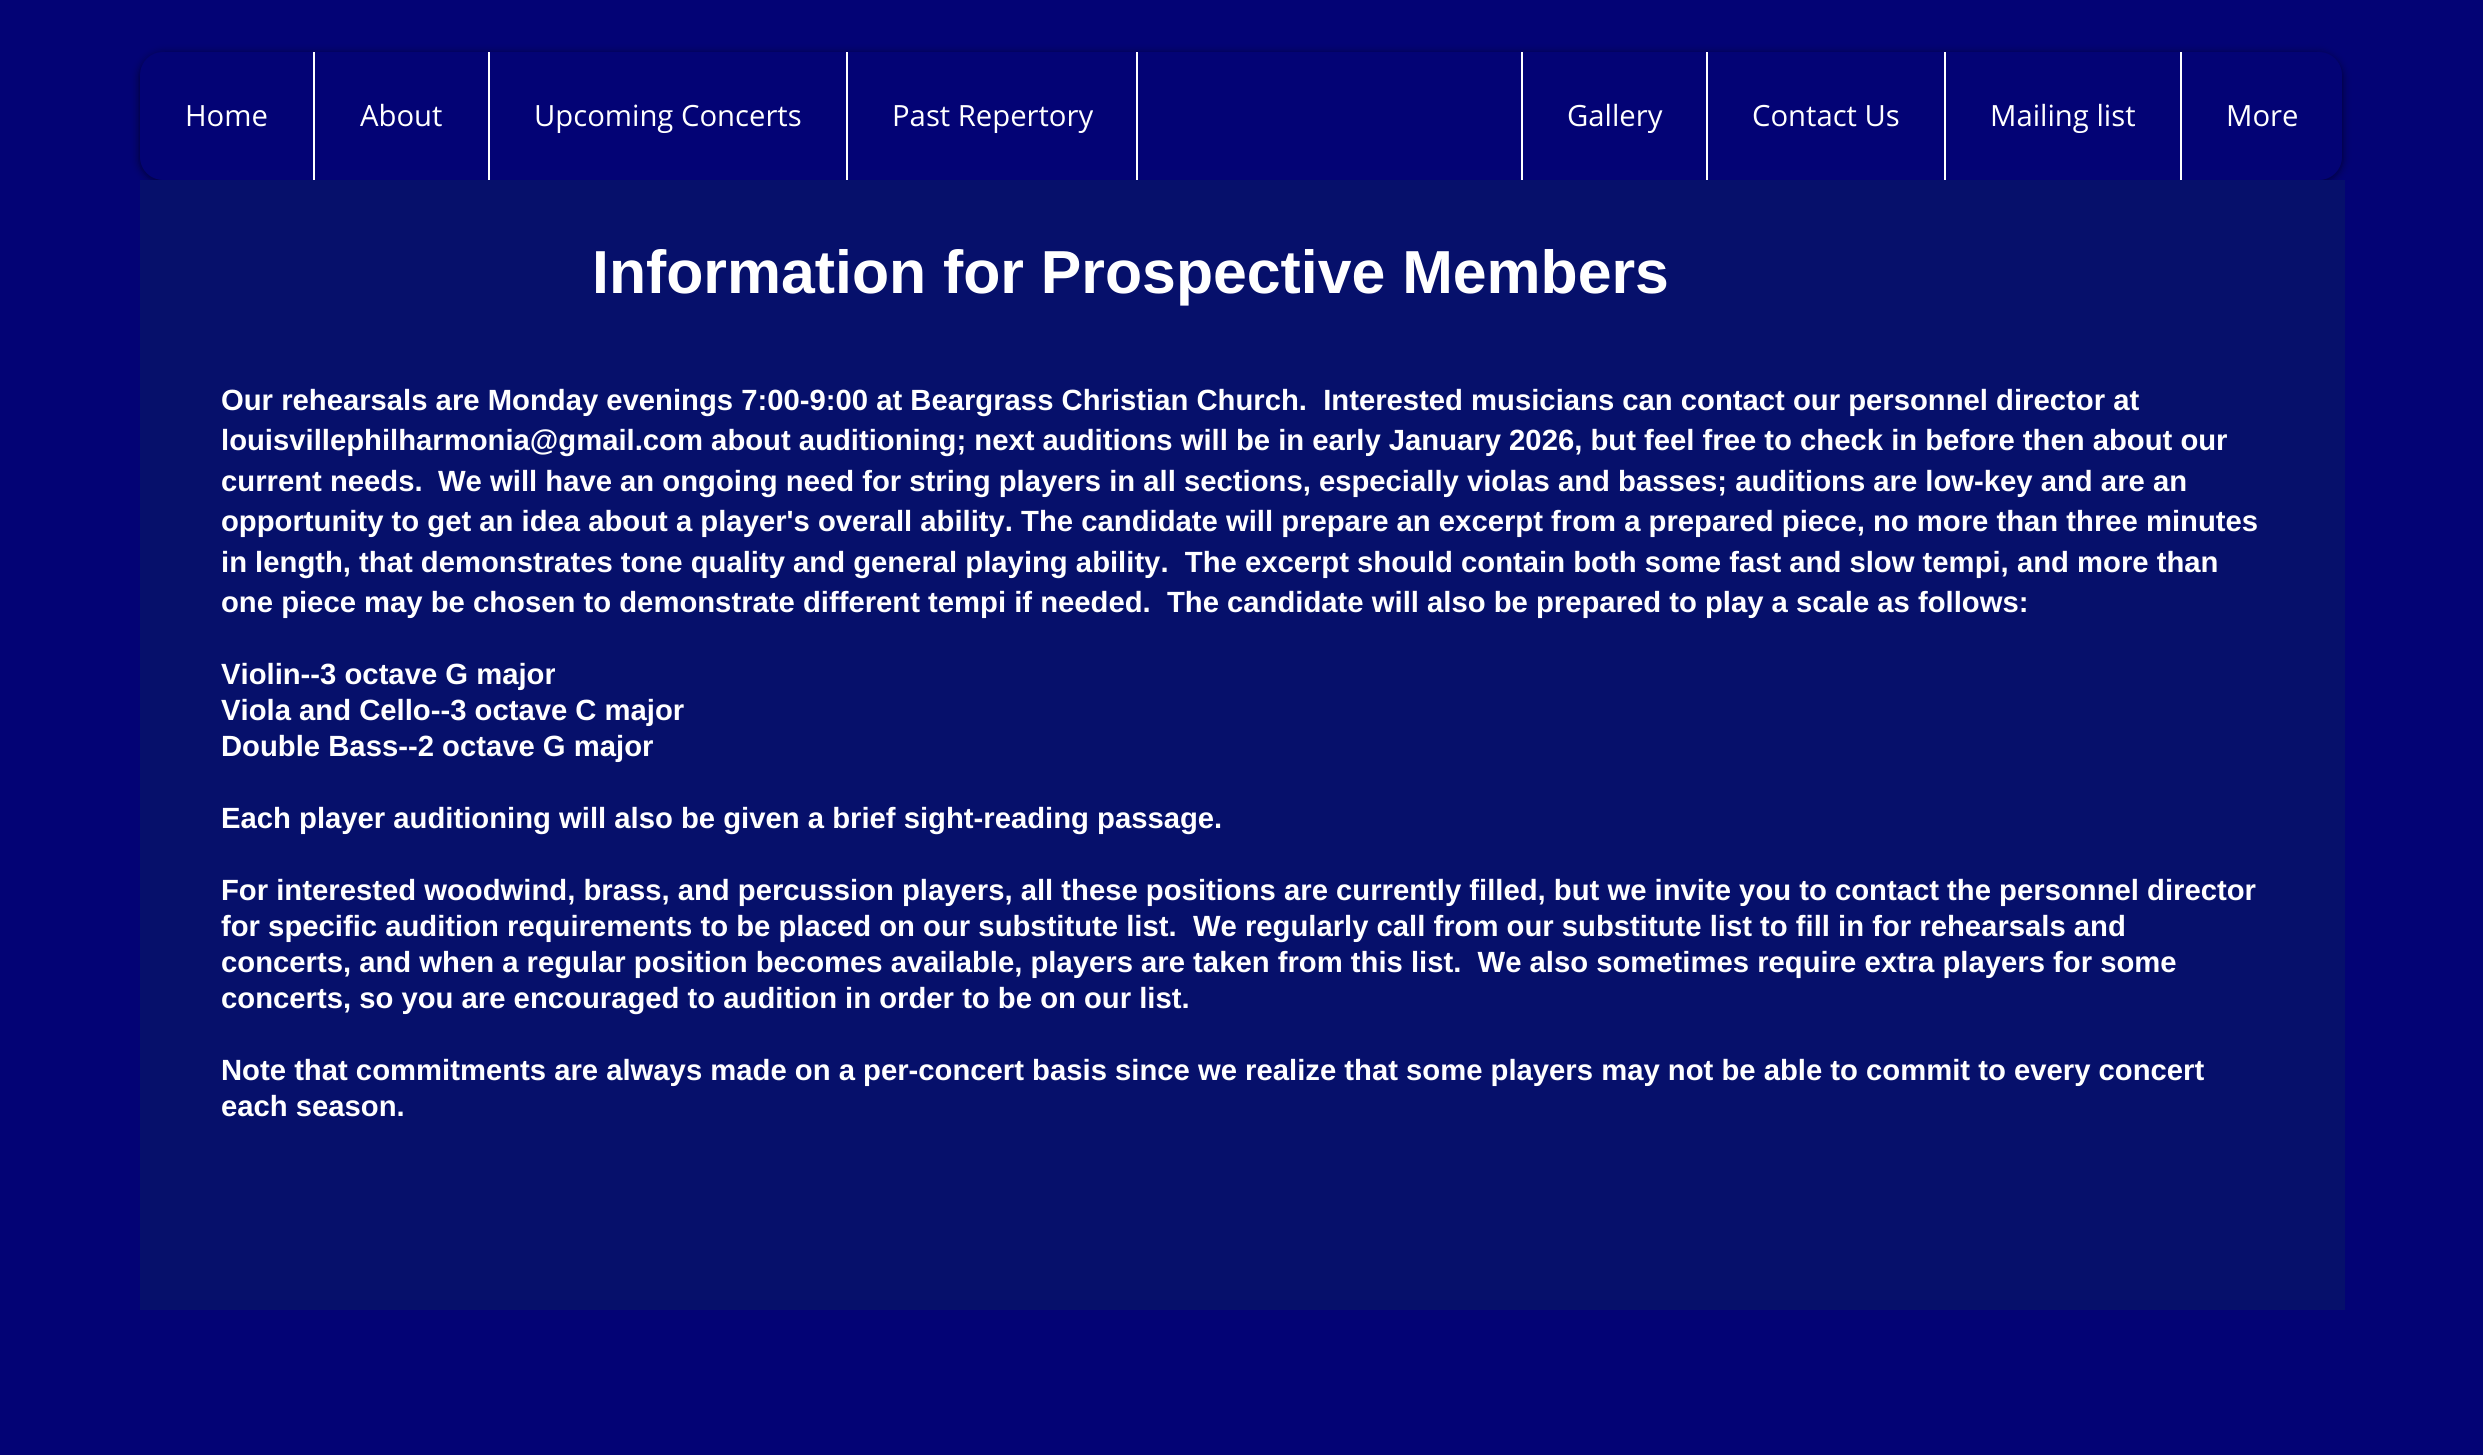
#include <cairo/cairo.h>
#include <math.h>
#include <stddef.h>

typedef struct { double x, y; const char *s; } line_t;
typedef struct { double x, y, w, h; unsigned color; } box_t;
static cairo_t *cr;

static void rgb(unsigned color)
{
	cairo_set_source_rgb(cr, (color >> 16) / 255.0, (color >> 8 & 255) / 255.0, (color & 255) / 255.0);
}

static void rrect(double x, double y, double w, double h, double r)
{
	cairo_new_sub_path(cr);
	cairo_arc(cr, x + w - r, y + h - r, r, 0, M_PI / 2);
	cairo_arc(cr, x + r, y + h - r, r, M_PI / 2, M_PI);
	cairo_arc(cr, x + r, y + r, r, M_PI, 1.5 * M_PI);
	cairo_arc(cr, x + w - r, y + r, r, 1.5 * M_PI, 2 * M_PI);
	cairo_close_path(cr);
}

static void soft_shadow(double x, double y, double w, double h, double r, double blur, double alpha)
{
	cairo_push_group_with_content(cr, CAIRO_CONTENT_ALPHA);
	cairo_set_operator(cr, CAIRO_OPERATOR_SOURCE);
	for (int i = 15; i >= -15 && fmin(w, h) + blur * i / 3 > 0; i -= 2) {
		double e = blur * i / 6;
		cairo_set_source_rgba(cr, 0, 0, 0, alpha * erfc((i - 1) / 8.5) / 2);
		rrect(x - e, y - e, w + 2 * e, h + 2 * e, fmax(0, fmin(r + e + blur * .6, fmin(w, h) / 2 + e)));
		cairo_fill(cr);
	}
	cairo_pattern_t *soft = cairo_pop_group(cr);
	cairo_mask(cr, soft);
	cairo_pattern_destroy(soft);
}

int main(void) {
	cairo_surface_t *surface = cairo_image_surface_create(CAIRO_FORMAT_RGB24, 2483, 1455);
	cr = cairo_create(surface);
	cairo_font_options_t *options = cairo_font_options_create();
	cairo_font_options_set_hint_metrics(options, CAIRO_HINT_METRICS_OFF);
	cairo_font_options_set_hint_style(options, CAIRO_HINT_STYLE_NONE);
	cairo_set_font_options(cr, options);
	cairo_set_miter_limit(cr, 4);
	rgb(0x030375);
	cairo_paint(cr);
	rgb(0x000000);
	soft_shadow(140, 54, 2202, 128, 23, 4.5, 0.6);
	rgb(0x030375);
	rrect(140, 52, 2202, 128, 23);
	cairo_fill(cr);
	{
		static const box_t items[] = {
			{313, 52, 2, 128, 0xffffff},
			{488, 52, 2, 128, 0xffffff},
			{846, 52, 2, 128, 0xffffff},
			{1136, 52, 2, 128, 0xffffff},
			{1521, 52, 2, 128, 0xffffff},
			{1706, 52, 2, 128, 0xffffff},
			{1944, 52, 2, 128, 0xffffff},
			{2180, 52, 2, 128, 0xffffff},
			{140, 180, 2205, 1130, 0x06106b},
		};
		for (size_t i = 0; i < sizeof items / sizeof *items; i++) {
			rgb(items[i].color);
			cairo_rectangle(cr, items[i].x, items[i].y, items[i].w, items[i].h);
			cairo_fill(cr);
		}
	}
	cairo_select_font_face(cr, "Open Sans", CAIRO_FONT_SLANT_NORMAL, CAIRO_FONT_WEIGHT_NORMAL);
	cairo_set_font_size(cr, 29.25);
	rgb(0xffffff);
	{
		static const line_t items[] = {
			{185, 126, "Home"},
			{360, 126, "About"},
			{534, 126, "Upcoming Concerts"},
			{892, 126, "Past Repertory"},
			{1567, 126, "Gallery"},
			{1752, 126, "Contact Us"},
			{1990, 126, "Mailing list"},
			{2226, 126, "More"},
		};
		for (size_t i = 0; i < sizeof items / sizeof *items; i++) {
			cairo_move_to(cr, items[i].x, items[i].y);
			cairo_show_text(cr, items[i].s);
		}
	}
	cairo_select_font_face(cr, "Liberation Sans", CAIRO_FONT_SLANT_NORMAL, CAIRO_FONT_WEIGHT_BOLD);
	cairo_set_font_size(cr, 60.75);
	cairo_move_to(cr, 592, 293);
	cairo_show_text(cr, "Information for Prospective Members");
	cairo_set_font_size(cr, 29.25);
	{
		static const line_t items[] = {
			{221, 410, "Our rehearsals are Monday evenings 7:00-9:00 at Beargrass Christian Church.  Interested musicians can contact our personnel director at"},
			{221, 450, "louisvillephilharmonia@gmail.com about auditioning; next auditions will be in early January 2026, but feel free to check in before then about our"},
			{221, 491, "current needs."},
			{438, 491, "We will have an ongoing need for string players in all sections, especially violas and basses; auditions are low-key and are an"},
			{221, 531, "opportunity to get an idea about a player's overall ability. The candidate will prepare an excerpt from a prepared piece, no more than three minutes"},
			{221, 572, "in length, that demonstrates tone quality and general playing ability.  The excerpt should contain both some fast and slow tempi, and more than"},
			{221, 612, "one piece may be chosen to demonstrate different tempi if needed.  The candidate will also be prepared to play a scale as follows:"},
			{221, 684, "Violin--3 octave G major"},
			{221, 720, "Viola and Cello--3 octave C major"},
			{221, 756, "Double Bass--2 octave G major"},
			{221, 828, "Each player auditioning will also be given a brief sight-reading passage."},
			{221, 900, "For interested woodwind, brass, and percussion players, all these positions are currently filled, but we invite you to contact the personnel director"},
			{221, 936, "for specific audition requirements to be placed on our substitute list.  We regularly call from our substitute list to fill in for rehearsals and"},
			{221, 972, "concerts, and when a regular position becomes available, players are taken from this list.  We also sometimes require extra players for some"},
			{221, 1008, "concerts, so you are encouraged to audition in order to be on our list."},
			{221, 1080, "Note that commitments are always made on a per-concert basis since we realize that some players may not be able to commit to every concert"},
			{221, 1116, "each season."},
		};
		for (size_t i = 0; i < sizeof items / sizeof *items; i++) {
			cairo_move_to(cr, items[i].x, items[i].y);
			cairo_show_text(cr, items[i].s);
		}
	}
	cairo_surface_write_to_png(surface, "page.png");
	cairo_font_options_destroy(options);
	cairo_destroy(cr);
	cairo_surface_destroy(surface);
	return 0;
}
